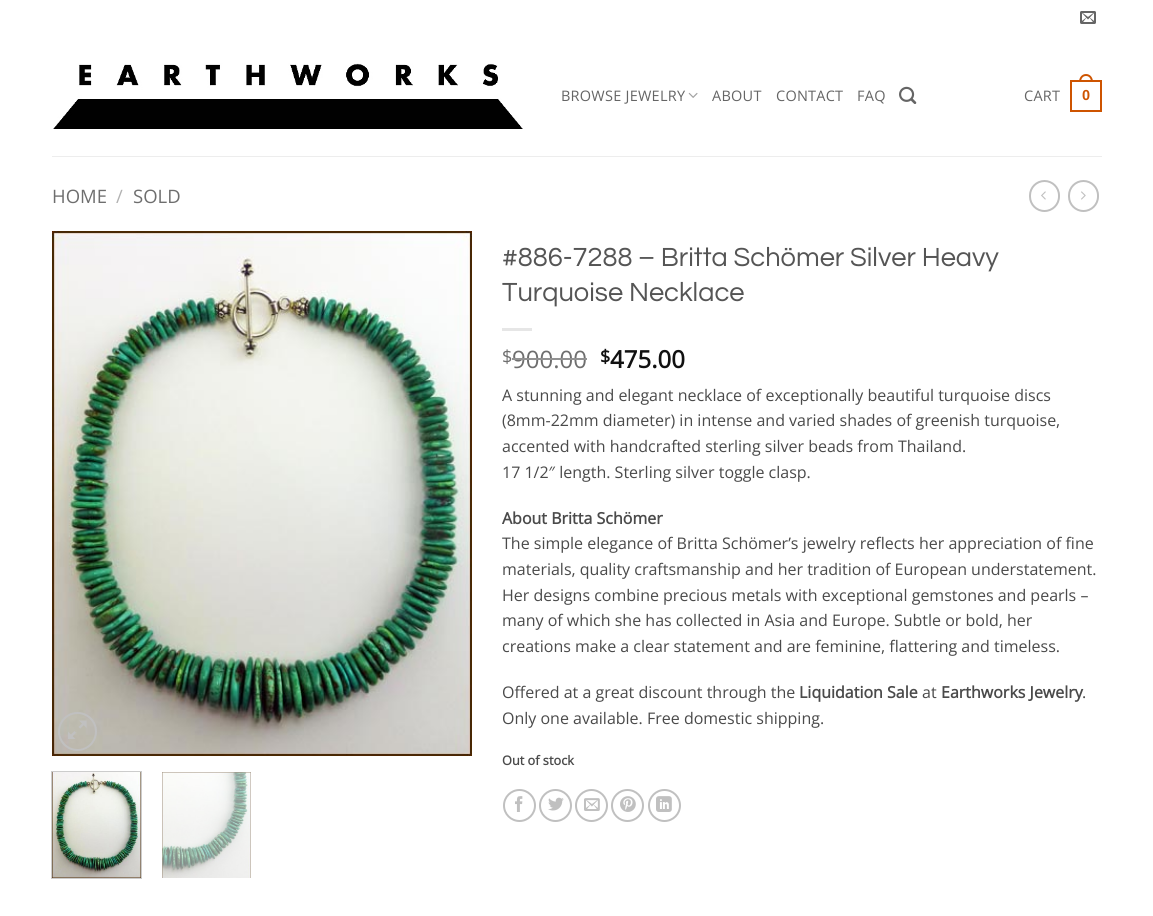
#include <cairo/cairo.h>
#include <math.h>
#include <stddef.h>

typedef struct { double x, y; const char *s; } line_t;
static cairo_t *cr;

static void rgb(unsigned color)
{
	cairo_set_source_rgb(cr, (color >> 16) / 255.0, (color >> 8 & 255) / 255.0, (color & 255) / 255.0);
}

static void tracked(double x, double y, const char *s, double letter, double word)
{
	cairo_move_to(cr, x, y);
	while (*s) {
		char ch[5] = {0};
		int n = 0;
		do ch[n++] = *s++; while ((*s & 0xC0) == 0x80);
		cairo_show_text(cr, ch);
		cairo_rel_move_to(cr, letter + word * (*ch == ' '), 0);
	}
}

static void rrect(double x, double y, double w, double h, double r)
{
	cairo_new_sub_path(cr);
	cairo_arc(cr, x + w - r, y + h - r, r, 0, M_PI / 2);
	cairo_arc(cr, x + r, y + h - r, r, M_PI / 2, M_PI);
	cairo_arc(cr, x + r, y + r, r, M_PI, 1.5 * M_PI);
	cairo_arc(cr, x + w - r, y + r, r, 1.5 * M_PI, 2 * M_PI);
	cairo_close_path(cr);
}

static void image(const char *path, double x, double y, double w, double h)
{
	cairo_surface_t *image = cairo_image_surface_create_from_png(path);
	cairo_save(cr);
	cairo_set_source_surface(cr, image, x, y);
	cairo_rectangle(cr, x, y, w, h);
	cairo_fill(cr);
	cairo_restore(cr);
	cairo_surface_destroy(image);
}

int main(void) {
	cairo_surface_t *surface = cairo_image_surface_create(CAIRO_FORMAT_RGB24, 1153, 916);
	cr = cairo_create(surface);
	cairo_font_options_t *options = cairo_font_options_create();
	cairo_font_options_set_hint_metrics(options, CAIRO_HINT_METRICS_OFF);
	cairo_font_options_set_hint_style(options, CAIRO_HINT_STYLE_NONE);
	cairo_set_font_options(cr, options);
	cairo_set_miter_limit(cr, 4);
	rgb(0xffffff);
	cairo_paint(cr);
	image("img/1.png", 1080, 11, 16, 13);
	image("img/2.png", 53, 63, 470, 66);
	image("img/3.png", 688, 92, 10, 6);
	image("img/4.png", 899, 86, 18, 18);
	cairo_rectangle(cr, 1071, 81, 30, 30);
	rgb(0xce5400);
	cairo_stroke(cr);
	cairo_set_fill_rule(cr, CAIRO_FILL_RULE_EVEN_ODD);
	cairo_new_path(cr);
	cairo_move_to(cr, 1086, 74);
	cairo_curve_to(cr, 1090.5, 74, 1093, 78, 1093, 82);
	cairo_line_to(cr, 1079, 82);
	cairo_curve_to(cr, 1079, 78, 1081.5, 74, 1086, 74);
	cairo_close_path(cr);
	cairo_move_to(cr, 1086, 76);
	cairo_curve_to(cr, 1089.5, 76, 1091, 79, 1091, 82);
	cairo_line_to(cr, 1081, 82);
	cairo_curve_to(cr, 1081, 79, 1082.5, 76, 1086, 76);
	cairo_close_path(cr);
	cairo_fill(cr);
	rgb(0xededed);
	cairo_rectangle(cr, 52, 156, 1050, 1);
	cairo_fill(cr);
	rrect(1030, 181, 29, 30, 14.5);
	rgb(0xc0c0c0);
	cairo_stroke(cr);
	image("img/5.png", 1041, 191, 5, 9);
	rrect(1069, 181, 29, 30, 14.5);
	cairo_stroke(cr);
	image("img/6.png", 1081, 191, 5, 9);
	image("img/7.png", 52, 231, 420, 525);
	cairo_arc(cr, 77.5, 731.5, 18.5, 0, 2 * M_PI);
	cairo_stroke(cr);
	image("img/8.png", 68, 720, 19, 19);
	cairo_rectangle(cr, 51.5, 771.5, 90, 107);
	rgb(0xcccccc);
	cairo_set_line_width(cr, 1);
	cairo_stroke(cr);
	image("img/9.png", 52, 772, 89, 106);
	image("img/10.png", 162, 772, 89, 106);
	rgb(0xe6e6e6);
	cairo_rectangle(cr, 502, 328, 30, 3);
	cairo_fill(cr);
	cairo_arc(cr, 519.5, 805.5, 15.5, 0, 2 * M_PI);
	rgb(0xc0c0c0);
	cairo_set_line_width(cr, 2);
	cairo_stroke(cr);
	image("img/11.png", 515, 796, 8, 16);
	cairo_arc(cr, 555.5, 805.5, 15.5, 0, 2 * M_PI);
	cairo_stroke(cr);
	image("img/12.png", 548, 797, 16, 14);
	cairo_arc(cr, 591.5, 805.5, 15.5, 0, 2 * M_PI);
	cairo_stroke(cr);
	image("img/13.png", 584, 798, 16, 13);
	cairo_arc(cr, 627.5, 805.5, 15.5, 0, 2 * M_PI);
	cairo_stroke(cr);
	image("img/14.png", 620, 796, 16, 16);
	cairo_arc(cr, 664.5, 805.5, 15.5, 0, 2 * M_PI);
	cairo_stroke(cr);
	image("img/15.png", 656, 796, 16, 16);
	cairo_select_font_face(cr, "Open Sans", CAIRO_FONT_SLANT_NORMAL, CAIRO_FONT_WEIGHT_NORMAL);
	cairo_set_font_size(cr, 14.5);
	rgb(0x656565);
	{
		static const line_t items[] = {
			{561, 101, "BROWSE JEWELRY"},
			{712, 101, "ABOUT"},
			{776, 101, "CONTACT"},
			{857, 101, "FAQ"},
			{1024, 101, "CART"},
		};
		for (size_t i = 0; i < sizeof items / sizeof *items; i++) {
			tracked(items[i].x, items[i].y, items[i].s, 0.25, 0);
		}
	}
	cairo_select_font_face(cr, "Liberation Sans", CAIRO_FONT_SLANT_NORMAL, CAIRO_FONT_WEIGHT_BOLD);
	rgb(0xce5400);
	tracked(1082, 100, "0", 0.25, 0);
	cairo_select_font_face(cr, "Open Sans", CAIRO_FONT_SLANT_NORMAL, CAIRO_FONT_WEIGHT_NORMAL);
	cairo_set_font_size(cr, 18.5);
	rgb(0x6e6e6e);
	cairo_move_to(cr, 52, 203);
	cairo_show_text(cr, "HOME");
	rgb(0xb2b2b2);
	cairo_move_to(cr, 116, 203);
	cairo_show_text(cr, "/");
	rgb(0x6e6e6e);
	cairo_move_to(cr, 133, 203);
	cairo_show_text(cr, "SOLD");
	cairo_select_font_face(cr, "Questrial", CAIRO_FONT_SLANT_NORMAL, CAIRO_FONT_WEIGHT_NORMAL);
	cairo_set_font_size(cr, 27.25);
	rgb(0x555555);
	cairo_move_to(cr, 502, 266);
	cairo_show_text(cr, "#886-7288 – Britta Schömer Silver Heavy");
	cairo_move_to(cr, 502, 301);
	cairo_show_text(cr, "Turquoise Necklace");
	cairo_select_font_face(cr, "Open Sans", CAIRO_FONT_SLANT_NORMAL, CAIRO_FONT_WEIGHT_NORMAL);
	cairo_set_font_size(cr, 18);
	rgb(0x6e6e6e);
	cairo_move_to(cr, 502, 363);
	cairo_show_text(cr, "$");
	cairo_set_font_size(cr, 24);
	cairo_move_to(cr, 512, 368);
	cairo_show_text(cr, "900.00");
	rgb(0x929292);
	cairo_rectangle(cr, 512, 358, 75, 2);
	cairo_fill(cr);
	cairo_select_font_face(cr, "Open Sans", CAIRO_FONT_SLANT_NORMAL, CAIRO_FONT_WEIGHT_BOLD);
	cairo_set_font_size(cr, 18);
	rgb(0x111111);
	cairo_move_to(cr, 600, 363);
	cairo_show_text(cr, "$");
	cairo_set_font_size(cr, 24);
	cairo_move_to(cr, 610, 368);
	cairo_show_text(cr, "475.00");
	cairo_select_font_face(cr, "Open Sans", CAIRO_FONT_SLANT_NORMAL, CAIRO_FONT_WEIGHT_NORMAL);
	cairo_set_font_size(cr, 16);
	rgb(0x4a4a4a);
	{
		static const line_t items[] = {
			{502, 401, "A stunning and elegant necklace of exceptionally beautiful turquoise discs"},
			{502, 426, "(8mm-22mm diameter) in intense and varied shades of greenish turquoise,"},
			{502, 452, "accented with handcrafted sterling silver beads from Thailand."},
			{502, 478, "17 1/2″ length. Sterling silver toggle clasp."},
		};
		for (size_t i = 0; i < sizeof items / sizeof *items; i++) {
			cairo_move_to(cr, items[i].x, items[i].y);
			cairo_show_text(cr, items[i].s);
		}
	}
	cairo_select_font_face(cr, "Open Sans", CAIRO_FONT_SLANT_NORMAL, CAIRO_FONT_WEIGHT_BOLD);
	cairo_move_to(cr, 502, 524);
	cairo_show_text(cr, "About Britta Schömer");
	cairo_select_font_face(cr, "Open Sans", CAIRO_FONT_SLANT_NORMAL, CAIRO_FONT_WEIGHT_NORMAL);
	{
		static const line_t items[] = {
			{502, 549, "The simple elegance of Britta Schömer’s jewelry reflects her appreciation of fine"},
			{502, 575, "materials, quality craftsmanship and her tradition of European understatement."},
			{502, 601, "Her designs combine precious metals with exceptional gemstones and pearls –"},
			{502, 626, "many of which she has collected in Asia and Europe. Subtle or bold, her"},
			{502, 652, "creations make a clear statement and are feminine, flattering and timeless."},
			{502, 698, "Offered at a great discount through the"},
		};
		for (size_t i = 0; i < sizeof items / sizeof *items; i++) {
			cairo_move_to(cr, items[i].x, items[i].y);
			cairo_show_text(cr, items[i].s);
		}
	}
	cairo_select_font_face(cr, "Open Sans", CAIRO_FONT_SLANT_NORMAL, CAIRO_FONT_WEIGHT_BOLD);
	cairo_move_to(cr, 799, 698);
	cairo_show_text(cr, "Liquidation Sale");
	cairo_select_font_face(cr, "Open Sans", CAIRO_FONT_SLANT_NORMAL, CAIRO_FONT_WEIGHT_NORMAL);
	cairo_move_to(cr, 922, 698);
	cairo_show_text(cr, "at");
	cairo_select_font_face(cr, "Open Sans", CAIRO_FONT_SLANT_NORMAL, CAIRO_FONT_WEIGHT_BOLD);
	cairo_move_to(cr, 941, 698);
	cairo_show_text(cr, "Earthworks Jewelry");
	cairo_select_font_face(cr, "Open Sans", CAIRO_FONT_SLANT_NORMAL, CAIRO_FONT_WEIGHT_NORMAL);
	cairo_move_to(cr, 1082, 698);
	cairo_show_text(cr, ".");
	cairo_move_to(cr, 502, 724);
	cairo_show_text(cr, "Only one available. Free domestic shipping.");
	cairo_select_font_face(cr, "Open Sans", CAIRO_FONT_SLANT_NORMAL, CAIRO_FONT_WEIGHT_BOLD);
	cairo_set_font_size(cr, 12.75);
	cairo_move_to(cr, 502, 765);
	cairo_show_text(cr, "Out of stock");
	cairo_surface_write_to_png(surface, "page.png");
	cairo_font_options_destroy(options);
	cairo_destroy(cr);
	cairo_surface_destroy(surface);
	return 0;
}
